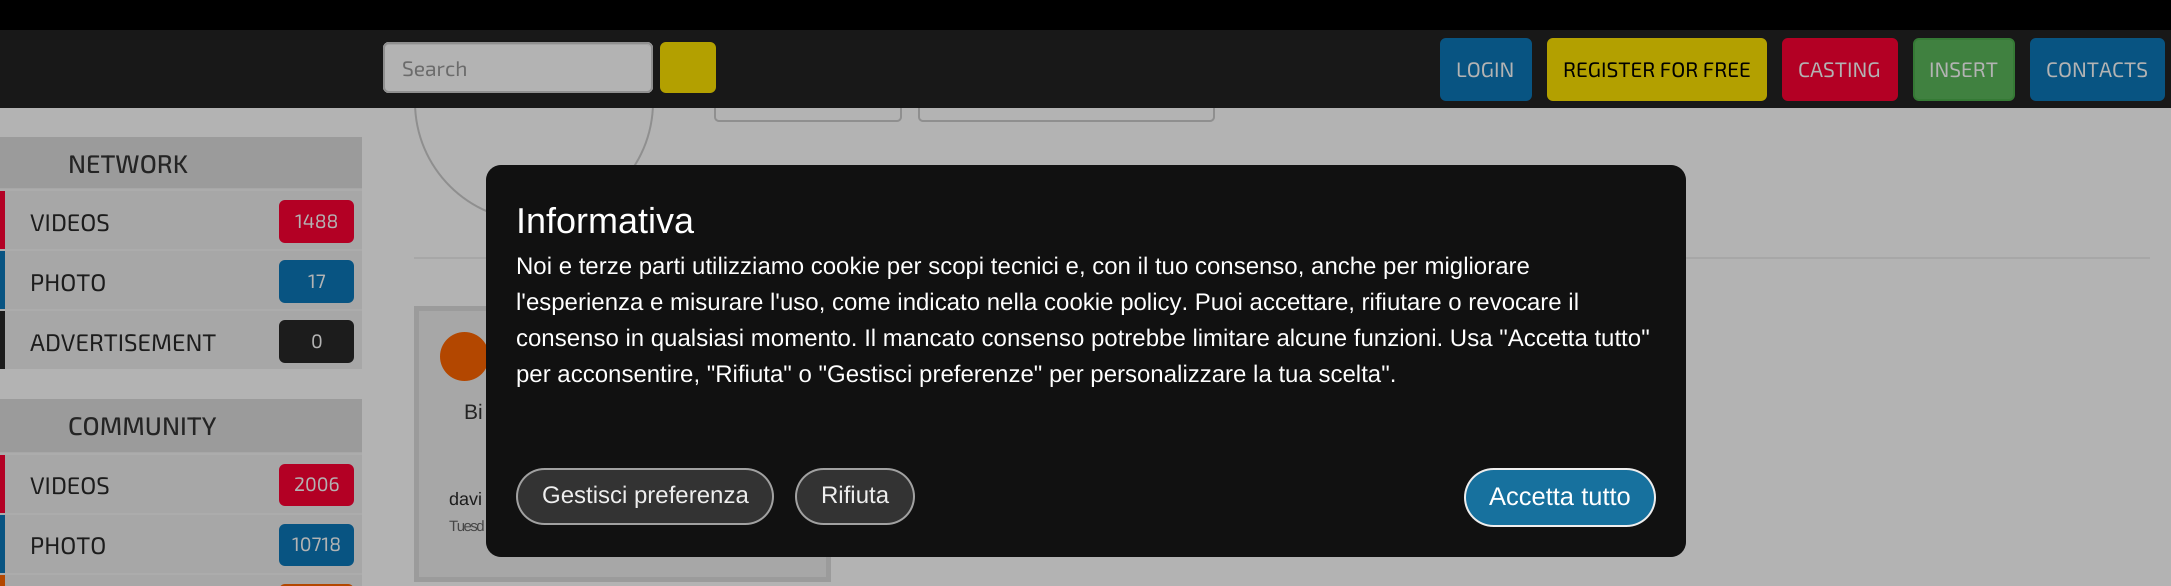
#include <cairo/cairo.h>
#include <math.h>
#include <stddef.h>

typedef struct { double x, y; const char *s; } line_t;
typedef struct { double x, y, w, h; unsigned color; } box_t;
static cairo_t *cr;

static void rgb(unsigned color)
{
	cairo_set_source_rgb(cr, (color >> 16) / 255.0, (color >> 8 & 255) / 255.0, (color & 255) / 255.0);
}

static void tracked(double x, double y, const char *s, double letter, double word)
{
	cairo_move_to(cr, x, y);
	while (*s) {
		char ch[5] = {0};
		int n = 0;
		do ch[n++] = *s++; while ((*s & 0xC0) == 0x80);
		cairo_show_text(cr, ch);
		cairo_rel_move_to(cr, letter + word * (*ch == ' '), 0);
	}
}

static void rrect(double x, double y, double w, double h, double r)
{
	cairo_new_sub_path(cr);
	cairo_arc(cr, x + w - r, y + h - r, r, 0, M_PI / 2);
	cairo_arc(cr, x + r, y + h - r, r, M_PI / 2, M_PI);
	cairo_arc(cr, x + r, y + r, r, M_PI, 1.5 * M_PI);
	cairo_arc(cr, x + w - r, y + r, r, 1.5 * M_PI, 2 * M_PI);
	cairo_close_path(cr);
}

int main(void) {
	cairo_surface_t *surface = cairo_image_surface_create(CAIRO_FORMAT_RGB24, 2171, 586);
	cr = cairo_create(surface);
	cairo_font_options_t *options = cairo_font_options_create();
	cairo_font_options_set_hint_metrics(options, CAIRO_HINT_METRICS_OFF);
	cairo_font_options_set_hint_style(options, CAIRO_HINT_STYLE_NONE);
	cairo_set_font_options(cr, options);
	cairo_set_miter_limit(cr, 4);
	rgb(0xb3b3b3);
	cairo_paint(cr);
	cairo_arc(cr, 534, 102, 119, 0, 2 * M_PI);
	rgb(0x8f8f8f);
	cairo_stroke(cr);
	rrect(715, 78, 186, 43, 4);
	cairo_stroke(cr);
	rrect(919, 78, 295, 43, 4);
	cairo_stroke(cr);
	rgb(0x181818);
	cairo_rectangle(cr, 0, 30, 2171, 78);
	cairo_fill(cr);
	rgb(0x000000);
	cairo_rectangle(cr, 0, 0, 2171, 30);
	cairo_fill(cr);
	rgb(0xb3b3b3);
	rrect(383, 42, 270, 51, 6);
	cairo_fill(cr);
	rgb(0xa5a5a5);
	cairo_new_path(cr);
	cairo_move_to(cr, 388, 45);
	cairo_line_to(cr, 646, 45);
	cairo_curve_to(cr, 649, 45, 651, 47, 651, 50);
	cairo_curve_to(cr, 651, 47, 649, 44, 646, 44);
	cairo_line_to(cr, 389, 44);
	cairo_curve_to(cr, 386, 44, 384, 47, 384, 50);
	cairo_curve_to(cr, 384, 47, 386, 45, 388, 45);
	cairo_close_path(cr);
	cairo_fill(cr);
	rrect(384, 43, 268, 49, 5);
	rgb(0x8f8f8f);
	cairo_stroke(cr);
	rgb(0xb3a000);
	rrect(661, 43, 54, 49, 5);
	cairo_fill_preserve(cr);
	cairo_stroke(cr);
	rgb(0x085482);
	rrect(1440, 38, 92, 63, 6);
	cairo_fill(cr);
	rgb(0xb3a000);
	rrect(1547, 38, 220, 63, 6);
	cairo_fill(cr);
	rgb(0xb30024);
	rrect(1782, 38, 116, 63, 6);
	cairo_fill(cr);
	rgb(0x408140);
	rrect(1914, 39, 100, 61, 5);
	cairo_fill_preserve(cr);
	rgb(0x357a35);
	cairo_stroke(cr);
	rgb(0x085482);
	rrect(2030, 38, 135, 63, 6);
	cairo_fill(cr);
	{
		static const box_t items[] = {
			{0, 137, 362, 51, 0x9b9b9b},
			{0, 188, 362, 1, 0xa7a7a7},
			{5, 191, 357, 58, 0xa7a7a7},
			{0, 189, 5, 60, 0xb30024},
			{0, 189, 362, 2, 0xacacac},
		};
		for (size_t i = 0; i < sizeof items / sizeof *items; i++) {
			rgb(items[i].color);
			cairo_rectangle(cr, items[i].x, items[i].y, items[i].w, items[i].h);
			cairo_fill(cr);
		}
	}
	rgb(0xb30024);
	rrect(279, 200, 75, 43, 6);
	cairo_fill(cr);
	{
		static const box_t items[] = {
			{5, 251, 357, 58, 0xa7a7a7},
			{0, 249, 5, 60, 0x085482},
			{0, 249, 362, 2, 0xacacac},
		};
		for (size_t i = 0; i < sizeof items / sizeof *items; i++) {
			rgb(items[i].color);
			cairo_rectangle(cr, items[i].x, items[i].y, items[i].w, items[i].h);
			cairo_fill(cr);
		}
	}
	rgb(0x085482);
	rrect(279, 260, 75, 43, 6);
	cairo_fill(cr);
	{
		static const box_t items[] = {
			{5, 311, 357, 58, 0xa7a7a7},
			{0, 309, 5, 60, 0x1c1c1c},
			{0, 309, 362, 2, 0xacacac},
		};
		for (size_t i = 0; i < sizeof items / sizeof *items; i++) {
			rgb(items[i].color);
			cairo_rectangle(cr, items[i].x, items[i].y, items[i].w, items[i].h);
			cairo_fill(cr);
		}
	}
	rgb(0x1c1c1c);
	rrect(279, 320, 75, 43, 6);
	cairo_fill(cr);
	{
		static const box_t items[] = {
			{0, 399, 362, 53, 0x9b9b9b},
			{0, 452, 362, 1, 0xa7a7a7},
			{5, 455, 357, 58, 0xa7a7a7},
			{0, 453, 5, 60, 0xb30024},
			{0, 453, 362, 2, 0xacacac},
		};
		for (size_t i = 0; i < sizeof items / sizeof *items; i++) {
			rgb(items[i].color);
			cairo_rectangle(cr, items[i].x, items[i].y, items[i].w, items[i].h);
			cairo_fill(cr);
		}
	}
	rgb(0xb30024);
	rrect(279, 464, 75, 42, 6);
	cairo_fill(cr);
	{
		static const box_t items[] = {
			{5, 515, 357, 58, 0xa7a7a7},
			{0, 513, 5, 60, 0x085482},
			{0, 513, 362, 2, 0xacacac},
		};
		for (size_t i = 0; i < sizeof items / sizeof *items; i++) {
			rgb(items[i].color);
			cairo_rectangle(cr, items[i].x, items[i].y, items[i].w, items[i].h);
			cairo_fill(cr);
		}
	}
	rgb(0x085482);
	rrect(279, 524, 75, 42, 6);
	cairo_fill(cr);
	{
		static const box_t items[] = {
			{5, 575, 357, 11, 0xa7a7a7},
			{0, 573, 5, 13, 0xb34700},
			{0, 573, 362, 2, 0xacacac},
		};
		for (size_t i = 0; i < sizeof items / sizeof *items; i++) {
			rgb(items[i].color);
			cairo_rectangle(cr, items[i].x, items[i].y, items[i].w, items[i].h);
			cairo_fill(cr);
		}
	}
	rgb(0xb34700);
	rrect(279, 584, 75, 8, 6);
	cairo_fill(cr);
	rgb(0xa7a7a7);
	cairo_rectangle(cr, 414, 257, 1736, 2);
	cairo_fill(cr);
	cairo_rectangle(cr, 416.5, 308.5, 412, 271);
	cairo_fill_preserve(cr);
	rgb(0x9b9b9b);
	cairo_set_line_width(cr, 5);
	cairo_stroke(cr);
	rgb(0xb34700);
	cairo_arc(cr, 464.5, 356.5, 24.5, 0, 2 * M_PI);
	cairo_fill(cr);
	rgb(0x111111);
	rrect(486, 165, 1200, 392, 15);
	cairo_fill(cr);
	rgb(0x333333);
	rrect(517, 469, 256, 55, 27.5);
	cairo_fill_preserve(cr);
	rgb(0xa1a1a1);
	cairo_set_line_width(cr, 2);
	cairo_stroke(cr);
	rgb(0x333333);
	rrect(796, 469, 118, 55, 27.5);
	cairo_fill_preserve(cr);
	rgb(0xa1a1a1);
	cairo_stroke(cr);
	rgb(0x17719e);
	rrect(1465, 469, 190, 57, 28.5);
	cairo_fill_preserve(cr);
	rgb(0xeeeeee);
	cairo_stroke(cr);
	cairo_select_font_face(cr, "Exo 2", CAIRO_FONT_SLANT_NORMAL, CAIRO_FONT_WEIGHT_NORMAL);
	cairo_set_font_size(cr, 21);
	rgb(0x6b6b6b);
	cairo_move_to(cr, 402, 76);
	cairo_show_text(cr, "Search");
	rgb(0xb3b3b3);
	cairo_move_to(cr, 1456, 77);
	cairo_show_text(cr, "LOGIN");
	rgb(0x000000);
	cairo_move_to(cr, 1563, 77);
	cairo_show_text(cr, "REGISTER FOR FREE");
	rgb(0xb3b3b3);
	{
		static const line_t items[] = {
			{1798, 77, "CASTING"},
			{1929, 77, "INSERT"},
			{2046, 77, "CONTACTS"},
		};
		for (size_t i = 0; i < sizeof items / sizeof *items; i++) {
			cairo_move_to(cr, items[i].x, items[i].y);
			cairo_show_text(cr, items[i].s);
		}
	}
	cairo_select_font_face(cr, "Exo 2 Medium", CAIRO_FONT_SLANT_NORMAL, CAIRO_FONT_WEIGHT_NORMAL);
	cairo_set_font_size(cr, 25.5);
	rgb(0x242424);
	cairo_move_to(cr, 68, 173);
	cairo_show_text(cr, "NETWORK");
	cairo_select_font_face(cr, "Exo 2", CAIRO_FONT_SLANT_NORMAL, CAIRO_FONT_WEIGHT_NORMAL);
	cairo_set_font_size(cr, 24);
	rgb(0x1c1c1c);
	cairo_move_to(cr, 30, 231);
	cairo_show_text(cr, "VIDEOS");
	cairo_set_font_size(cr, 19.5);
	rgb(0xb3b3b3);
	cairo_move_to(cr, 295, 228);
	cairo_show_text(cr, "1488");
	cairo_set_font_size(cr, 24);
	rgb(0x1c1c1c);
	cairo_move_to(cr, 30, 291);
	cairo_show_text(cr, "PHOTO");
	cairo_set_font_size(cr, 19.5);
	rgb(0xb3b3b3);
	cairo_move_to(cr, 308, 288);
	cairo_show_text(cr, "17");
	cairo_set_font_size(cr, 24);
	rgb(0x1c1c1c);
	cairo_move_to(cr, 30, 351);
	cairo_show_text(cr, "ADVERTISEMENT");
	cairo_set_font_size(cr, 19.5);
	rgb(0xb3b3b3);
	cairo_move_to(cr, 311, 348);
	cairo_show_text(cr, "0");
	cairo_select_font_face(cr, "Exo 2 Medium", CAIRO_FONT_SLANT_NORMAL, CAIRO_FONT_WEIGHT_NORMAL);
	cairo_set_font_size(cr, 25.5);
	rgb(0x242424);
	cairo_move_to(cr, 68, 435);
	cairo_show_text(cr, "COMMUNITY");
	cairo_select_font_face(cr, "Exo 2", CAIRO_FONT_SLANT_NORMAL, CAIRO_FONT_WEIGHT_NORMAL);
	cairo_set_font_size(cr, 24);
	rgb(0x1c1c1c);
	cairo_move_to(cr, 30, 494);
	cairo_show_text(cr, "VIDEOS");
	cairo_set_font_size(cr, 19.5);
	rgb(0xb3b3b3);
	cairo_move_to(cr, 294, 491);
	cairo_show_text(cr, "2006");
	cairo_set_font_size(cr, 24);
	rgb(0x1c1c1c);
	cairo_move_to(cr, 30, 554);
	cairo_show_text(cr, "PHOTO");
	cairo_set_font_size(cr, 19.5);
	rgb(0xb3b3b3);
	cairo_move_to(cr, 292, 551);
	cairo_show_text(cr, "10718");
	cairo_select_font_face(cr, "Liberation Sans", CAIRO_FONT_SLANT_NORMAL, CAIRO_FONT_WEIGHT_NORMAL);
	cairo_set_font_size(cr, 21);
	rgb(0x242424);
	cairo_move_to(cr, 464, 419);
	cairo_show_text(cr, "Bi");
	cairo_set_font_size(cr, 18);
	rgb(0x1c1c1c);
	cairo_move_to(cr, 449, 505);
	cairo_show_text(cr, "davi");
	cairo_set_font_size(cr, 15);
	rgb(0x474747);
	tracked(449, 531, "Tuesd", -1.5, 0);
	cairo_set_font_size(cr, 36);
	rgb(0xffffff);
	cairo_move_to(cr, 516, 233);
	cairo_show_text(cr, "Informativa");
	cairo_set_font_size(cr, 24);
	{
		static const line_t items[] = {
			{516, 274, "Noi e terze parti utilizziamo cookie per scopi tecnici e, con il tuo consenso, anche per migliorare"},
			{516, 310, "l'esperienza e misurare l'uso, come indicato nella cookie policy. Puoi accettare, rifiutare o revocare il"},
			{516, 346, "consenso in qualsiasi momento. Il mancato consenso potrebbe limitare alcune funzioni. Usa \"Accetta tutto\""},
			{516, 382, "per acconsentire, \"Rifiuta\" o \"Gestisci preferenze\" per personalizzare la tua scelta\"."},
		};
		for (size_t i = 0; i < sizeof items / sizeof *items; i++) {
			cairo_move_to(cr, items[i].x, items[i].y);
			cairo_show_text(cr, items[i].s);
		}
	}
	rgb(0xeeeeee);
	cairo_move_to(cr, 542, 503);
	cairo_show_text(cr, "Gestisci preferenza");
	cairo_move_to(cr, 821, 503);
	cairo_show_text(cr, "Rifiuta");
	cairo_set_font_size(cr, 25.5);
	rgb(0xffffff);
	cairo_move_to(cr, 1489, 505);
	cairo_show_text(cr, "Accetta tutto");
	cairo_surface_write_to_png(surface, "page.png");
	cairo_font_options_destroy(options);
	cairo_destroy(cr);
	cairo_surface_destroy(surface);
	return 0;
}
